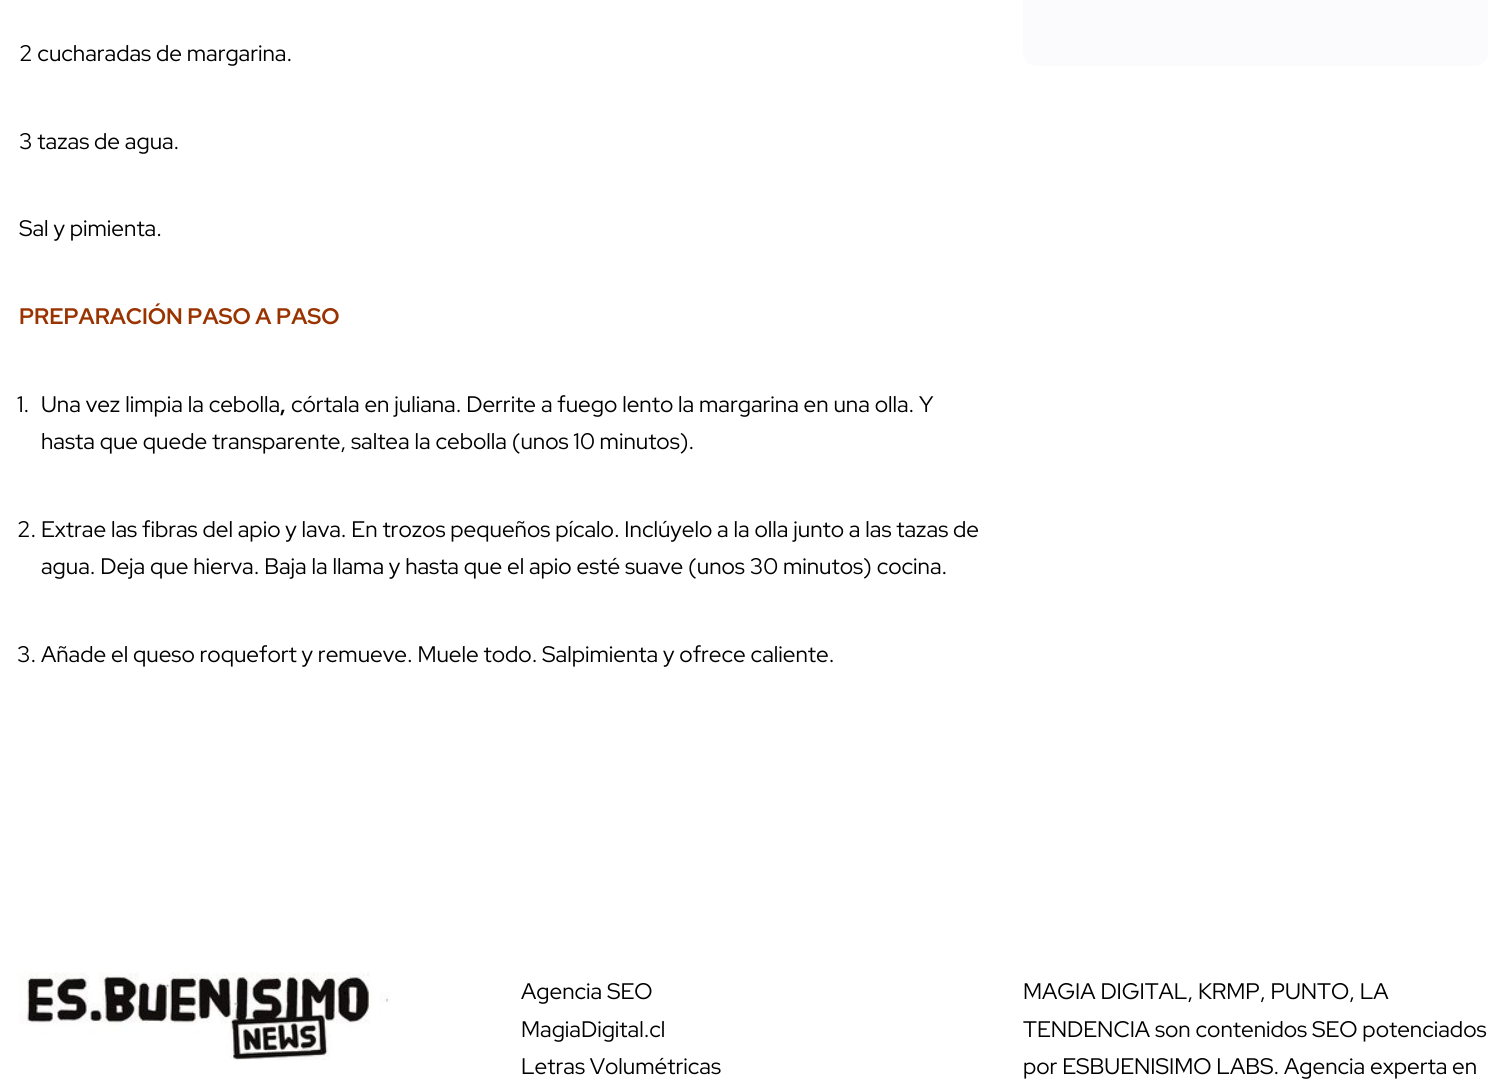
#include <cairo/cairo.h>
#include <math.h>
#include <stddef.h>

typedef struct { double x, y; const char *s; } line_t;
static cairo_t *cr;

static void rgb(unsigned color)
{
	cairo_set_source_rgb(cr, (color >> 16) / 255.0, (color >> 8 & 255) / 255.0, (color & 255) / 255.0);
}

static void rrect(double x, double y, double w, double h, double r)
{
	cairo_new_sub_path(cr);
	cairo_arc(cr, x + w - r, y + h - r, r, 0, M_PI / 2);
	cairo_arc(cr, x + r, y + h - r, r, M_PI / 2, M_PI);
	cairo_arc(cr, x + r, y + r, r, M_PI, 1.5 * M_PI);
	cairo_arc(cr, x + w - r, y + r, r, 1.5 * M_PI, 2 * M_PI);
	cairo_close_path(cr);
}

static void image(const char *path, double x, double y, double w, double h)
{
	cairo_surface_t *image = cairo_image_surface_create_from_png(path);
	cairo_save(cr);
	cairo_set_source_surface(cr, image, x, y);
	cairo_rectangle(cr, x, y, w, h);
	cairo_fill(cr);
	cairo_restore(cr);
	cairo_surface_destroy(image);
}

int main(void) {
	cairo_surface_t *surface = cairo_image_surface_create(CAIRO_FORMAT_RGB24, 1506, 1091);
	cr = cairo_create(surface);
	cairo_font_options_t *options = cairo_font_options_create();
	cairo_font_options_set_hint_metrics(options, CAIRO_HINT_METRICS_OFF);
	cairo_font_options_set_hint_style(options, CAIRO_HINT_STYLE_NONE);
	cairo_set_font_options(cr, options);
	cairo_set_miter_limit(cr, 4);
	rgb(0xffffff);
	cairo_paint(cr);
	rgb(0xfbfbfd);
	rrect(1023, -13, 465, 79, 13);
	cairo_fill(cr);
	image("img/1.png", 19, 972, 371, 88);
	cairo_select_font_face(cr, "Red Hat Display", CAIRO_FONT_SLANT_NORMAL, CAIRO_FONT_WEIGHT_NORMAL);
	cairo_set_font_size(cr, 22.5);
	rgb(0x000000);
	{
		static const line_t items[] = {
			{19, 61, "2 cucharadas de margarina."},
			{19, 149, "3 tazas de agua."},
			{19, 236, "Sal y pimienta."},
		};
		for (size_t i = 0; i < sizeof items / sizeof *items; i++) {
			cairo_move_to(cr, items[i].x, items[i].y);
			cairo_show_text(cr, items[i].s);
		}
	}
	cairo_select_font_face(cr, "Red Hat Display", CAIRO_FONT_SLANT_NORMAL, CAIRO_FONT_WEIGHT_BOLD);
	rgb(0x993300);
	cairo_move_to(cr, 19, 324);
	cairo_show_text(cr, "PREPARACIÓN PASO A PASO");
	cairo_select_font_face(cr, "Red Hat Display", CAIRO_FONT_SLANT_NORMAL, CAIRO_FONT_WEIGHT_NORMAL);
	rgb(0x000000);
	cairo_move_to(cr, 17, 412);
	cairo_show_text(cr, "1.");
	cairo_move_to(cr, 41, 412);
	cairo_show_text(cr, "Una vez limpia la cebolla");
	cairo_select_font_face(cr, "Red Hat Display", CAIRO_FONT_SLANT_NORMAL, CAIRO_FONT_WEIGHT_BOLD);
	cairo_move_to(cr, 280, 412);
	cairo_show_text(cr, ",");
	cairo_select_font_face(cr, "Red Hat Display", CAIRO_FONT_SLANT_NORMAL, CAIRO_FONT_WEIGHT_NORMAL);
	{
		static const line_t items[] = {
			{291, 412, "córtala en juliana. Derrite a fuego lento la margarina en una olla. Y"},
			{41, 449, "hasta que quede transparente, saltea la cebolla (unos 10 minutos)."},
			{17, 537, "2. Extrae las fibras del apio y lava. En trozos pequeños pícalo. Inclúyelo a la olla junto a las tazas de"},
			{41, 574, "agua. Deja que hierva. Baja la llama y hasta que el apio esté suave (unos 30 minutos) cocina."},
			{17, 662, "3. Añade el queso roquefort y remueve. Muele todo. Salpimienta y ofrece caliente."},
			{521, 999, "Agencia SEO"},
			{521, 1037, "MagiaDigital.cl"},
			{521, 1074, "Letras Volumétricas"},
			{1023, 999, "MAGIA DIGITAL, KRMP, PUNTO, LA"},
			{1023, 1037, "TENDENCIA son contenidos SEO potenciados"},
			{1023, 1074, "por ESBUENISIMO LABS. Agencia experta en"},
		};
		for (size_t i = 0; i < sizeof items / sizeof *items; i++) {
			cairo_move_to(cr, items[i].x, items[i].y);
			cairo_show_text(cr, items[i].s);
		}
	}
	cairo_surface_write_to_png(surface, "page.png");
	cairo_font_options_destroy(options);
	cairo_destroy(cr);
	cairo_surface_destroy(surface);
	return 0;
}
